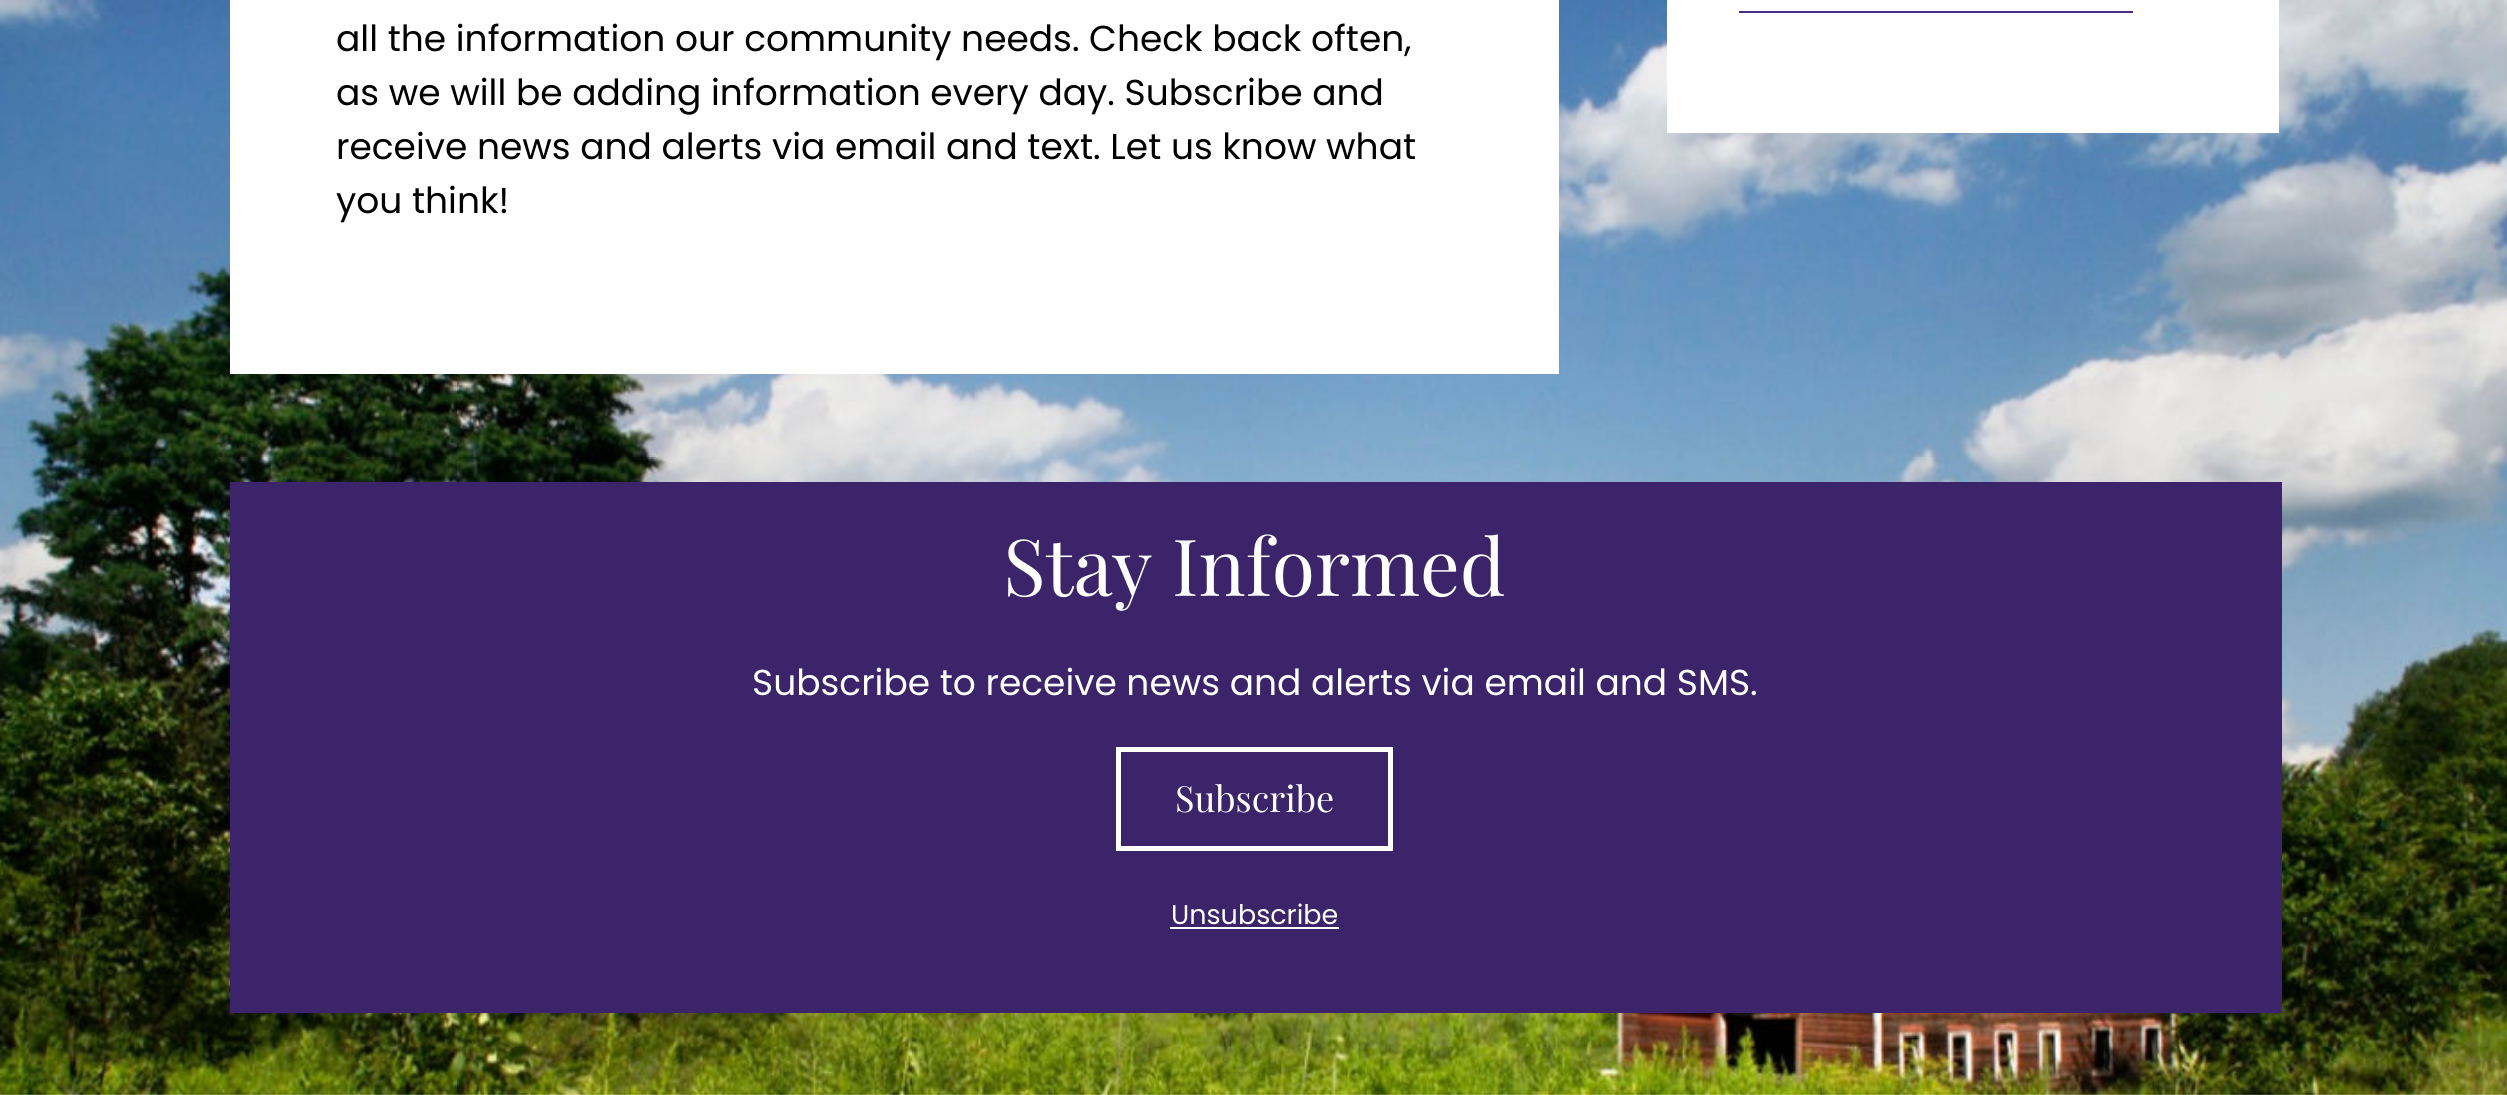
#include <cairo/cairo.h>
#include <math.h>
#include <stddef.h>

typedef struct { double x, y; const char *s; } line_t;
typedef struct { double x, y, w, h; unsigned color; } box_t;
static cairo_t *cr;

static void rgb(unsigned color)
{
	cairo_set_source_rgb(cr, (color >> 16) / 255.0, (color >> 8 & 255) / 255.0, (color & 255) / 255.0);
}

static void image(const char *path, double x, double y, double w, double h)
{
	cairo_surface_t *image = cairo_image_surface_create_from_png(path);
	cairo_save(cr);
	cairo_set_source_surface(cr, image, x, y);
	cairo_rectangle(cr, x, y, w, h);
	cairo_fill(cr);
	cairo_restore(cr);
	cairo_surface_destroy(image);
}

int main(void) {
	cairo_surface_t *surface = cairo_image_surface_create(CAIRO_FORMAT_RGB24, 2507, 1095);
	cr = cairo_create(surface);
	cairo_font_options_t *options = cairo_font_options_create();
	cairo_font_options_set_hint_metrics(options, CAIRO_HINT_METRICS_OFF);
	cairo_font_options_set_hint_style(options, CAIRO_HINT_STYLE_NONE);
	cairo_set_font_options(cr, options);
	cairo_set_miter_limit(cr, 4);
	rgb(0xffffff);
	cairo_paint(cr);
	image("img/1.png", 0, 0, 2507, 1095);
	{
		static const box_t items[] = {
			{230, 0, 1329, 374, 0xffffff},
			{1667, 0, 612, 133, 0xffffff},
			{1739, 11, 394, 2, 0x4a2d83},
			{230, 482, 2052, 531, 0x3b2469},
		};
		for (size_t i = 0; i < sizeof items / sizeof *items; i++) {
			rgb(items[i].color);
			cairo_rectangle(cr, items[i].x, items[i].y, items[i].w, items[i].h);
			cairo_fill(cr);
		}
	}
	cairo_rectangle(cr, 1118.5, 749.5, 272, 99);
	rgb(0xffffff);
	cairo_set_line_width(cr, 5);
	cairo_stroke(cr);
	cairo_rectangle(cr, 1170, 927, 169, 2);
	cairo_fill(cr);
	cairo_select_font_face(cr, "Poppins", CAIRO_FONT_SLANT_NORMAL, CAIRO_FONT_WEIGHT_NORMAL);
	cairo_set_font_size(cr, 36);
	rgb(0x000000);
	{
		static const line_t items[] = {
			{336, 51, "all the information our community needs. Check back often,"},
			{336, 105, "as we will be adding information every day. Subscribe and"},
			{336, 159, "receive news and alerts via email and text. Let us know what"},
			{336, 213, "you think!"},
		};
		for (size_t i = 0; i < sizeof items / sizeof *items; i++) {
			cairo_move_to(cr, items[i].x, items[i].y);
			cairo_show_text(cr, items[i].s);
		}
	}
	cairo_select_font_face(cr, "Playfair Display", CAIRO_FONT_SLANT_NORMAL, CAIRO_FONT_WEIGHT_NORMAL);
	cairo_set_font_size(cr, 78.75);
	rgb(0xffffff);
	cairo_move_to(cr, 1003, 596);
	cairo_show_text(cr, "Stay Informed");
	cairo_select_font_face(cr, "Poppins", CAIRO_FONT_SLANT_NORMAL, CAIRO_FONT_WEIGHT_NORMAL);
	cairo_set_font_size(cr, 36);
	cairo_move_to(cr, 752, 695);
	cairo_show_text(cr, "Subscribe to receive news and alerts via email and SMS.");
	cairo_select_font_face(cr, "Playfair Display", CAIRO_FONT_SLANT_NORMAL, CAIRO_FONT_WEIGHT_NORMAL);
	cairo_move_to(cr, 1175, 812);
	cairo_show_text(cr, "Subscribe");
	cairo_select_font_face(cr, "Poppins", CAIRO_FONT_SLANT_NORMAL, CAIRO_FONT_WEIGHT_NORMAL);
	cairo_set_font_size(cr, 27);
	cairo_move_to(cr, 1171, 924);
	cairo_show_text(cr, "Unsubscribe");
	cairo_surface_write_to_png(surface, "page.png");
	cairo_font_options_destroy(options);
	cairo_destroy(cr);
	cairo_surface_destroy(surface);
	return 0;
}
